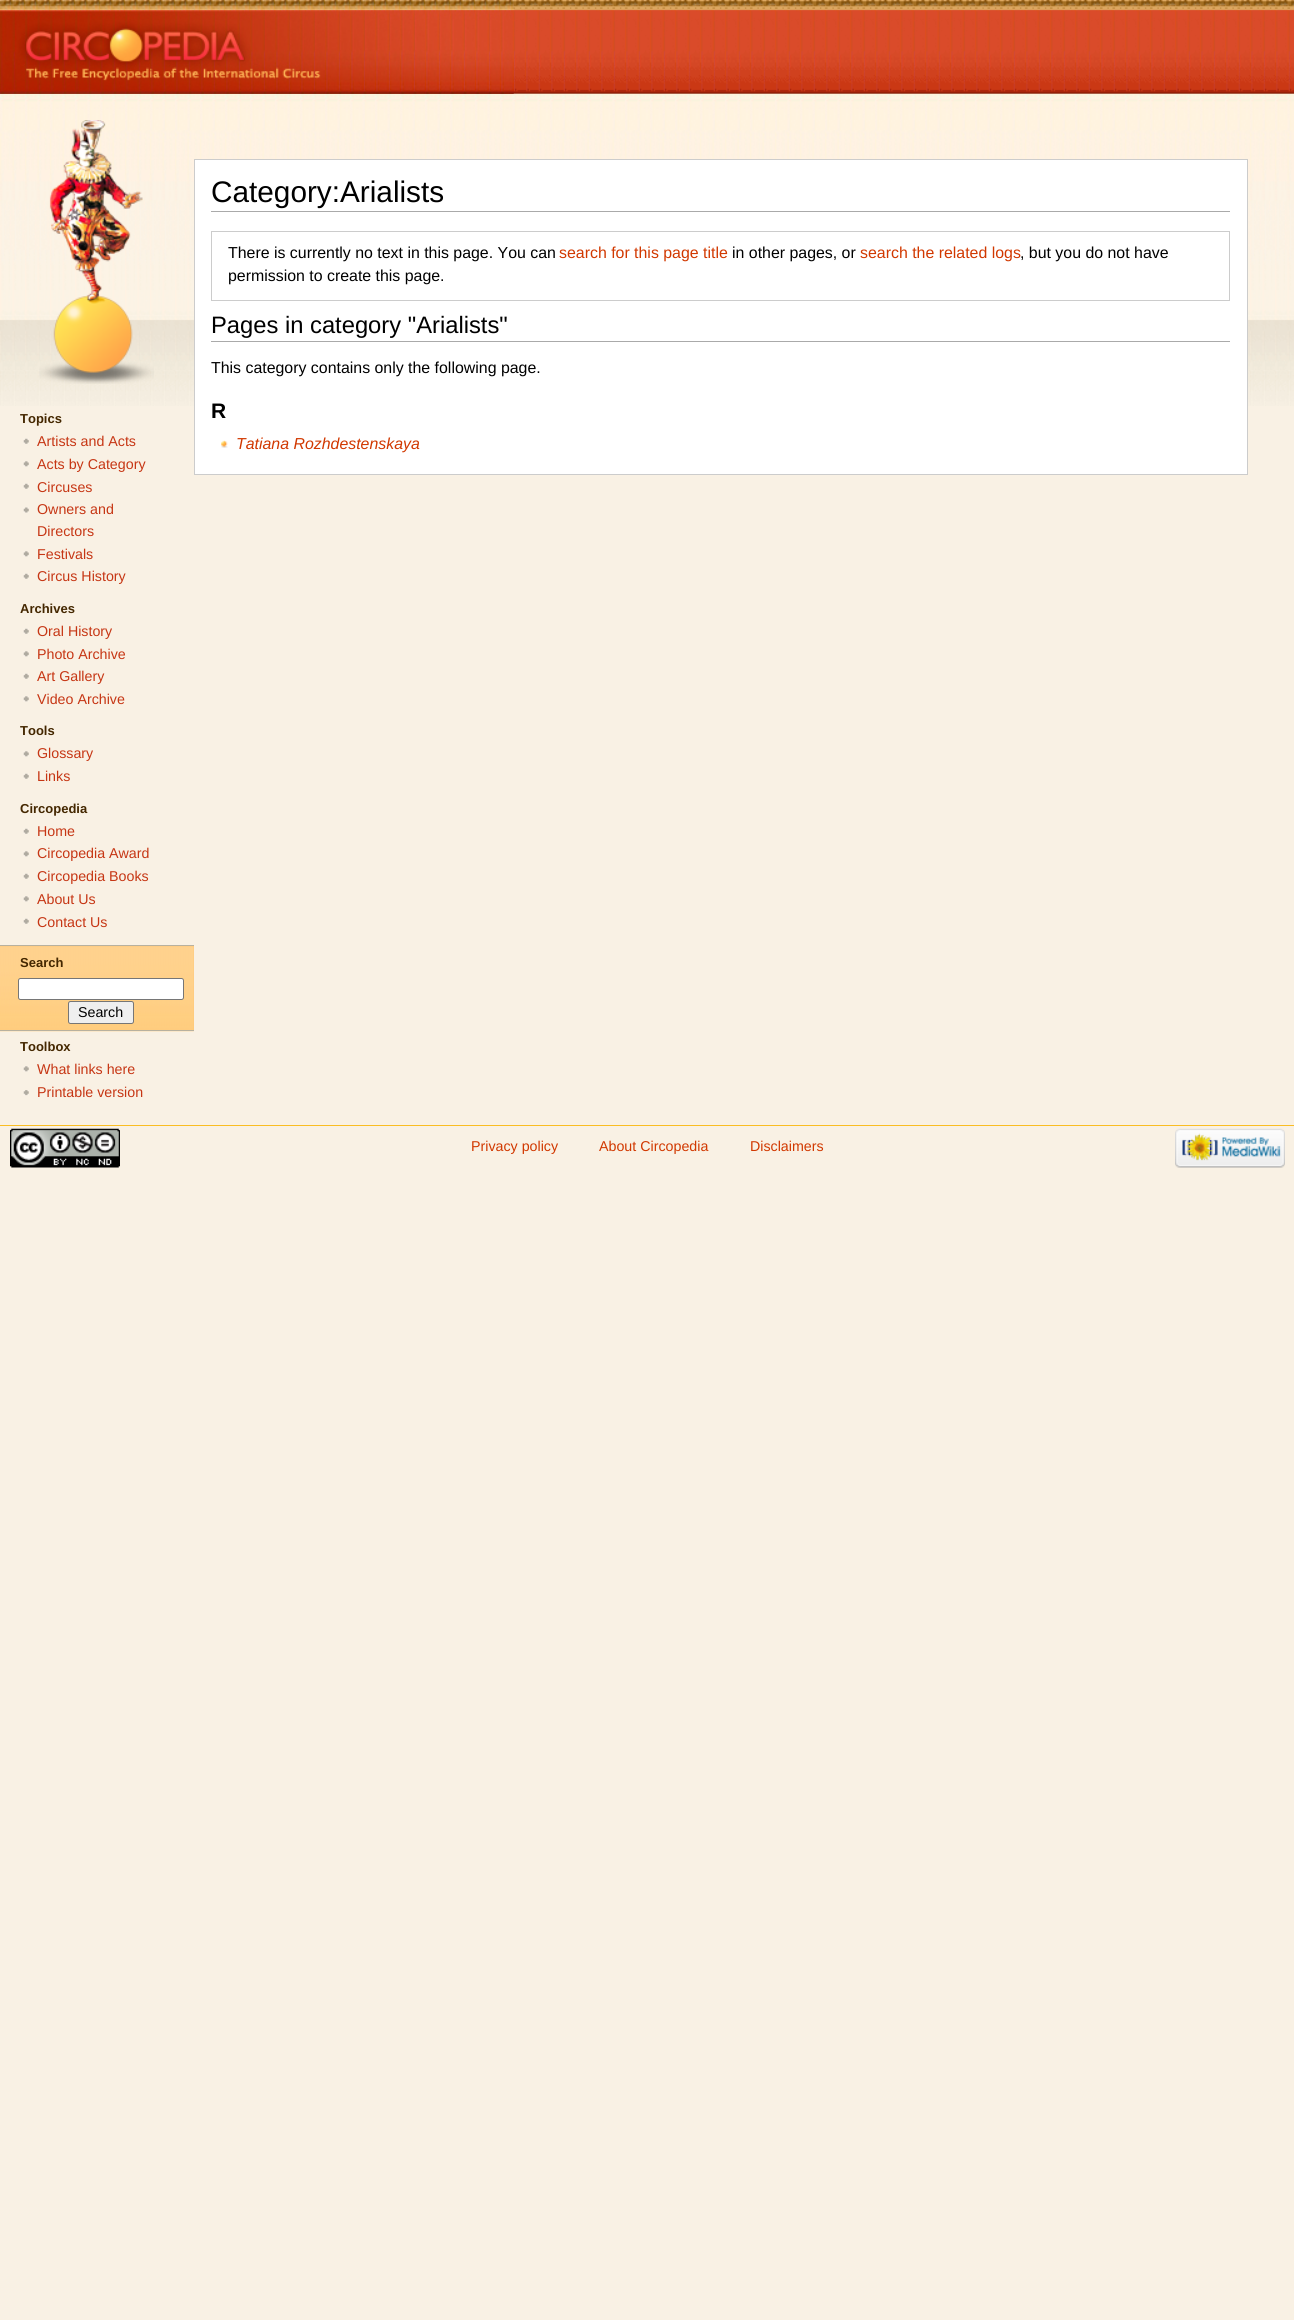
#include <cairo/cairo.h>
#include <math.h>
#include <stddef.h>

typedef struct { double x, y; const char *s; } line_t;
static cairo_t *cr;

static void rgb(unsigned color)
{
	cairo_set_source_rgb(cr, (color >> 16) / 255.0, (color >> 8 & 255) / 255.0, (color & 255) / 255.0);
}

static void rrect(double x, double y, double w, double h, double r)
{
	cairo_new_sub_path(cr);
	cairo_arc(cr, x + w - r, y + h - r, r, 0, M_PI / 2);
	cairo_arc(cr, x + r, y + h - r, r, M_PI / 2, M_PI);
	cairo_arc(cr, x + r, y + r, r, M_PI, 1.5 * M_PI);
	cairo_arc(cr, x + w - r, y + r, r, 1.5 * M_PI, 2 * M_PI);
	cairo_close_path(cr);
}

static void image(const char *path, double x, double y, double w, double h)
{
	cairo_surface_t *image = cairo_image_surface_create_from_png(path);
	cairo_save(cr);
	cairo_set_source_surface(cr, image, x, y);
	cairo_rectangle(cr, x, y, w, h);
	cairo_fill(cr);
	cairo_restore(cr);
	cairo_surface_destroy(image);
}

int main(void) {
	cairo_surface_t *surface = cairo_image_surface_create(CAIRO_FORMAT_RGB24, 1294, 2320);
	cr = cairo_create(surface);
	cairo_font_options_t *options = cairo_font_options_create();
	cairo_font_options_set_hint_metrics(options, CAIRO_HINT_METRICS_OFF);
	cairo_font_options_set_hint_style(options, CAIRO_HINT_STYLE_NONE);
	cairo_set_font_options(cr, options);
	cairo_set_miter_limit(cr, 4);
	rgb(0xf9f1e4);
	cairo_paint(cr);
	image("img/1.png", 0, 0, 1294, 406);
	image("img/2.png", 0, 0, 514, 94);
	rgb(0xffffff);
	cairo_rectangle(cr, 194.5, 159.5, 1053, 315);
	cairo_fill_preserve(cr);
	rgb(0xcccccc);
	cairo_set_line_width(cr, 1);
	cairo_stroke(cr);
	rgb(0xaaaaaa);
	cairo_rectangle(cr, 211, 211, 1019, 1);
	cairo_fill(cr);
	cairo_rectangle(cr, 211.5, 231.5, 1018, 69);
	rgb(0xcccccc);
	cairo_stroke(cr);
	rgb(0xaaaaaa);
	cairo_rectangle(cr, 211, 341, 1019, 1);
	cairo_fill(cr);
	image("img/3.png", 221, 440, 7, 8);
	image("img/4.png", 39, 120, 115, 264);
	image("img/5.png", 23, 438, 6, 6);
	image("img/6.png", 23, 461, 6, 6);
	image("img/5.png", 23, 483, 6, 6);
	image("img/7.png", 23, 507, 6, 6);
	image("img/6.png", 23, 551, 6, 6);
	image("img/5.png", 23, 573, 6, 6);
	image("img/5.png", 23, 628, 6, 6);
	image("img/6.png", 23, 651, 6, 6);
	image("img/5.png", 23, 673, 6, 6);
	image("img/6.png", 23, 696, 6, 6);
	image("img/6.png", 23, 751, 6, 6);
	image("img/5.png", 23, 773, 6, 6);
	image("img/5.png", 23, 828, 6, 6);
	image("img/6.png", 23, 851, 6, 6);
	image("img/5.png", 23, 873, 6, 6);
	image("img/6.png", 23, 896, 6, 6);
	image("img/5.png", 23, 918, 6, 6);
	rgb(0xffc46c);
	cairo_rectangle(cr, 0, 946, 194, 84);
	cairo_fill(cr);
	image("img/8.png", 0, 946, 194, 86);
	rgb(0xb8b19f);
	cairo_rectangle(cr, 0, 945, 194, 1);
	cairo_fill(cr);
	cairo_rectangle(cr, 0, 1030, 194, 1);
	cairo_fill(cr);
	rgb(0xffffff);
	rrect(18.5, 978.5, 165, 21, 2);
	cairo_fill_preserve(cr);
	rgb(0x767676);
	cairo_stroke(cr);
	rgb(0xefefef);
	rrect(68.5, 1001.5, 65, 22, 2);
	cairo_fill_preserve(cr);
	rgb(0x767676);
	cairo_stroke(cr);
	image("img/6.png", 23, 1066, 6, 6);
	image("img/9.png", 23, 1090, 6, 6);
	rgb(0xfabd23);
	cairo_rectangle(cr, 0, 1125, 1294, 1);
	cairo_fill(cr);
	image("img/10.png", 10, 1128, 110, 40);
	image("img/11.png", 1175, 1128, 110, 40);
	cairo_select_font_face(cr, "Liberation Sans", CAIRO_FONT_SLANT_NORMAL, CAIRO_FONT_WEIGHT_NORMAL);
	cairo_set_font_size(cr, 29.75);
	rgb(0x000000);
	cairo_move_to(cr, 211, 202);
	cairo_show_text(cr, "Category:Arialists");
	cairo_set_font_size(cr, 15.9);
	cairo_move_to(cr, 228, 258);
	cairo_show_text(cr, "There is currently no text in this page. You can");
	rgb(0xd13800);
	cairo_move_to(cr, 559, 258);
	cairo_show_text(cr, "search for this page title");
	rgb(0x000000);
	cairo_move_to(cr, 732, 258);
	cairo_show_text(cr, "in other pages, or");
	rgb(0xd13800);
	cairo_move_to(cr, 860, 258);
	cairo_show_text(cr, "search the related logs");
	rgb(0x000000);
	cairo_move_to(cr, 1020, 258);
	cairo_show_text(cr, ", but you do not have");
	cairo_move_to(cr, 228, 281);
	cairo_show_text(cr, "permission to create this page.");
	cairo_set_font_size(cr, 23.75);
	cairo_move_to(cr, 211, 333);
	cairo_show_text(cr, "Pages in category \"Arialists\"");
	cairo_set_font_size(cr, 15.9);
	cairo_move_to(cr, 211, 373);
	cairo_show_text(cr, "This category contains only the following page.");
	cairo_select_font_face(cr, "Liberation Sans", CAIRO_FONT_SLANT_NORMAL, CAIRO_FONT_WEIGHT_BOLD);
	cairo_set_font_size(cr, 21);
	cairo_move_to(cr, 211, 418);
	cairo_show_text(cr, "R");
	cairo_select_font_face(cr, "Liberation Sans", CAIRO_FONT_SLANT_ITALIC, CAIRO_FONT_WEIGHT_NORMAL);
	cairo_set_font_size(cr, 15.9);
	rgb(0xd13800);
	cairo_move_to(cr, 236, 449);
	cairo_show_text(cr, "Tatiana Rozhdestenskaya");
	cairo_select_font_face(cr, "Liberation Sans", CAIRO_FONT_SLANT_NORMAL, CAIRO_FONT_WEIGHT_BOLD);
	cairo_set_font_size(cr, 13);
	rgb(0x442700);
	cairo_move_to(cr, 20, 423);
	cairo_show_text(cr, "Topics");
	cairo_select_font_face(cr, "Liberation Sans", CAIRO_FONT_SLANT_NORMAL, CAIRO_FONT_WEIGHT_NORMAL);
	cairo_set_font_size(cr, 14.25);
	rgb(0xc63614);
	{
		static const line_t items[] = {
			{37, 446, "Artists and Acts"},
			{37, 469, "Acts by Category"},
			{37, 492, "Circuses"},
			{37, 514, "Owners and"},
			{37, 536, "Directors"},
			{37, 559, "Festivals"},
			{37, 581, "Circus History"},
		};
		for (size_t i = 0; i < sizeof items / sizeof *items; i++) {
			cairo_move_to(cr, items[i].x, items[i].y);
			cairo_show_text(cr, items[i].s);
		}
	}
	cairo_select_font_face(cr, "Liberation Sans", CAIRO_FONT_SLANT_NORMAL, CAIRO_FONT_WEIGHT_BOLD);
	cairo_set_font_size(cr, 13);
	rgb(0x442700);
	cairo_move_to(cr, 20, 613);
	cairo_show_text(cr, "Archives");
	cairo_select_font_face(cr, "Liberation Sans", CAIRO_FONT_SLANT_NORMAL, CAIRO_FONT_WEIGHT_NORMAL);
	cairo_set_font_size(cr, 14.25);
	rgb(0xc63614);
	{
		static const line_t items[] = {
			{37, 636, "Oral History"},
			{37, 659, "Photo Archive"},
			{37, 681, "Art Gallery"},
			{37, 704, "Video Archive"},
		};
		for (size_t i = 0; i < sizeof items / sizeof *items; i++) {
			cairo_move_to(cr, items[i].x, items[i].y);
			cairo_show_text(cr, items[i].s);
		}
	}
	cairo_select_font_face(cr, "Liberation Sans", CAIRO_FONT_SLANT_NORMAL, CAIRO_FONT_WEIGHT_BOLD);
	cairo_set_font_size(cr, 13);
	rgb(0x442700);
	cairo_move_to(cr, 20, 735);
	cairo_show_text(cr, "Tools");
	cairo_select_font_face(cr, "Liberation Sans", CAIRO_FONT_SLANT_NORMAL, CAIRO_FONT_WEIGHT_NORMAL);
	cairo_set_font_size(cr, 14.25);
	rgb(0xc63614);
	cairo_move_to(cr, 37, 758);
	cairo_show_text(cr, "Glossary");
	cairo_move_to(cr, 37, 781);
	cairo_show_text(cr, "Links");
	cairo_select_font_face(cr, "Liberation Sans", CAIRO_FONT_SLANT_NORMAL, CAIRO_FONT_WEIGHT_BOLD);
	cairo_set_font_size(cr, 13);
	rgb(0x442700);
	cairo_move_to(cr, 20, 813);
	cairo_show_text(cr, "Circopedia");
	cairo_select_font_face(cr, "Liberation Sans", CAIRO_FONT_SLANT_NORMAL, CAIRO_FONT_WEIGHT_NORMAL);
	cairo_set_font_size(cr, 14.25);
	rgb(0xc63614);
	{
		static const line_t items[] = {
			{37, 836, "Home"},
			{37, 858, "Circopedia Award"},
			{37, 881, "Circopedia Books"},
			{37, 904, "About Us"},
			{37, 927, "Contact Us"},
		};
		for (size_t i = 0; i < sizeof items / sizeof *items; i++) {
			cairo_move_to(cr, items[i].x, items[i].y);
			cairo_show_text(cr, items[i].s);
		}
	}
	cairo_select_font_face(cr, "Liberation Sans", CAIRO_FONT_SLANT_NORMAL, CAIRO_FONT_WEIGHT_BOLD);
	cairo_set_font_size(cr, 13);
	rgb(0x442700);
	cairo_move_to(cr, 20, 967);
	cairo_show_text(cr, "Search");
	cairo_select_font_face(cr, "Liberation Sans", CAIRO_FONT_SLANT_NORMAL, CAIRO_FONT_WEIGHT_NORMAL);
	cairo_set_font_size(cr, 14.25);
	rgb(0x000000);
	cairo_move_to(cr, 78, 1017);
	cairo_show_text(cr, "Search");
	cairo_select_font_face(cr, "Liberation Sans", CAIRO_FONT_SLANT_NORMAL, CAIRO_FONT_WEIGHT_BOLD);
	cairo_set_font_size(cr, 13);
	rgb(0x442700);
	cairo_move_to(cr, 20, 1051);
	cairo_show_text(cr, "Toolbox");
	cairo_select_font_face(cr, "Liberation Sans", CAIRO_FONT_SLANT_NORMAL, CAIRO_FONT_WEIGHT_NORMAL);
	cairo_set_font_size(cr, 14.25);
	rgb(0xc63614);
	cairo_move_to(cr, 37, 1074);
	cairo_show_text(cr, "What links here");
	cairo_move_to(cr, 37, 1097);
	cairo_show_text(cr, "Printable version");
	rgb(0xd13800);
	{
		static const line_t items[] = {
			{471, 1151, "Privacy policy"},
			{599, 1151, "About Circopedia"},
			{750, 1151, "Disclaimers"},
		};
		for (size_t i = 0; i < sizeof items / sizeof *items; i++) {
			cairo_move_to(cr, items[i].x, items[i].y);
			cairo_show_text(cr, items[i].s);
		}
	}
	cairo_surface_write_to_png(surface, "page.png");
	cairo_font_options_destroy(options);
	cairo_destroy(cr);
	cairo_surface_destroy(surface);
	return 0;
}
